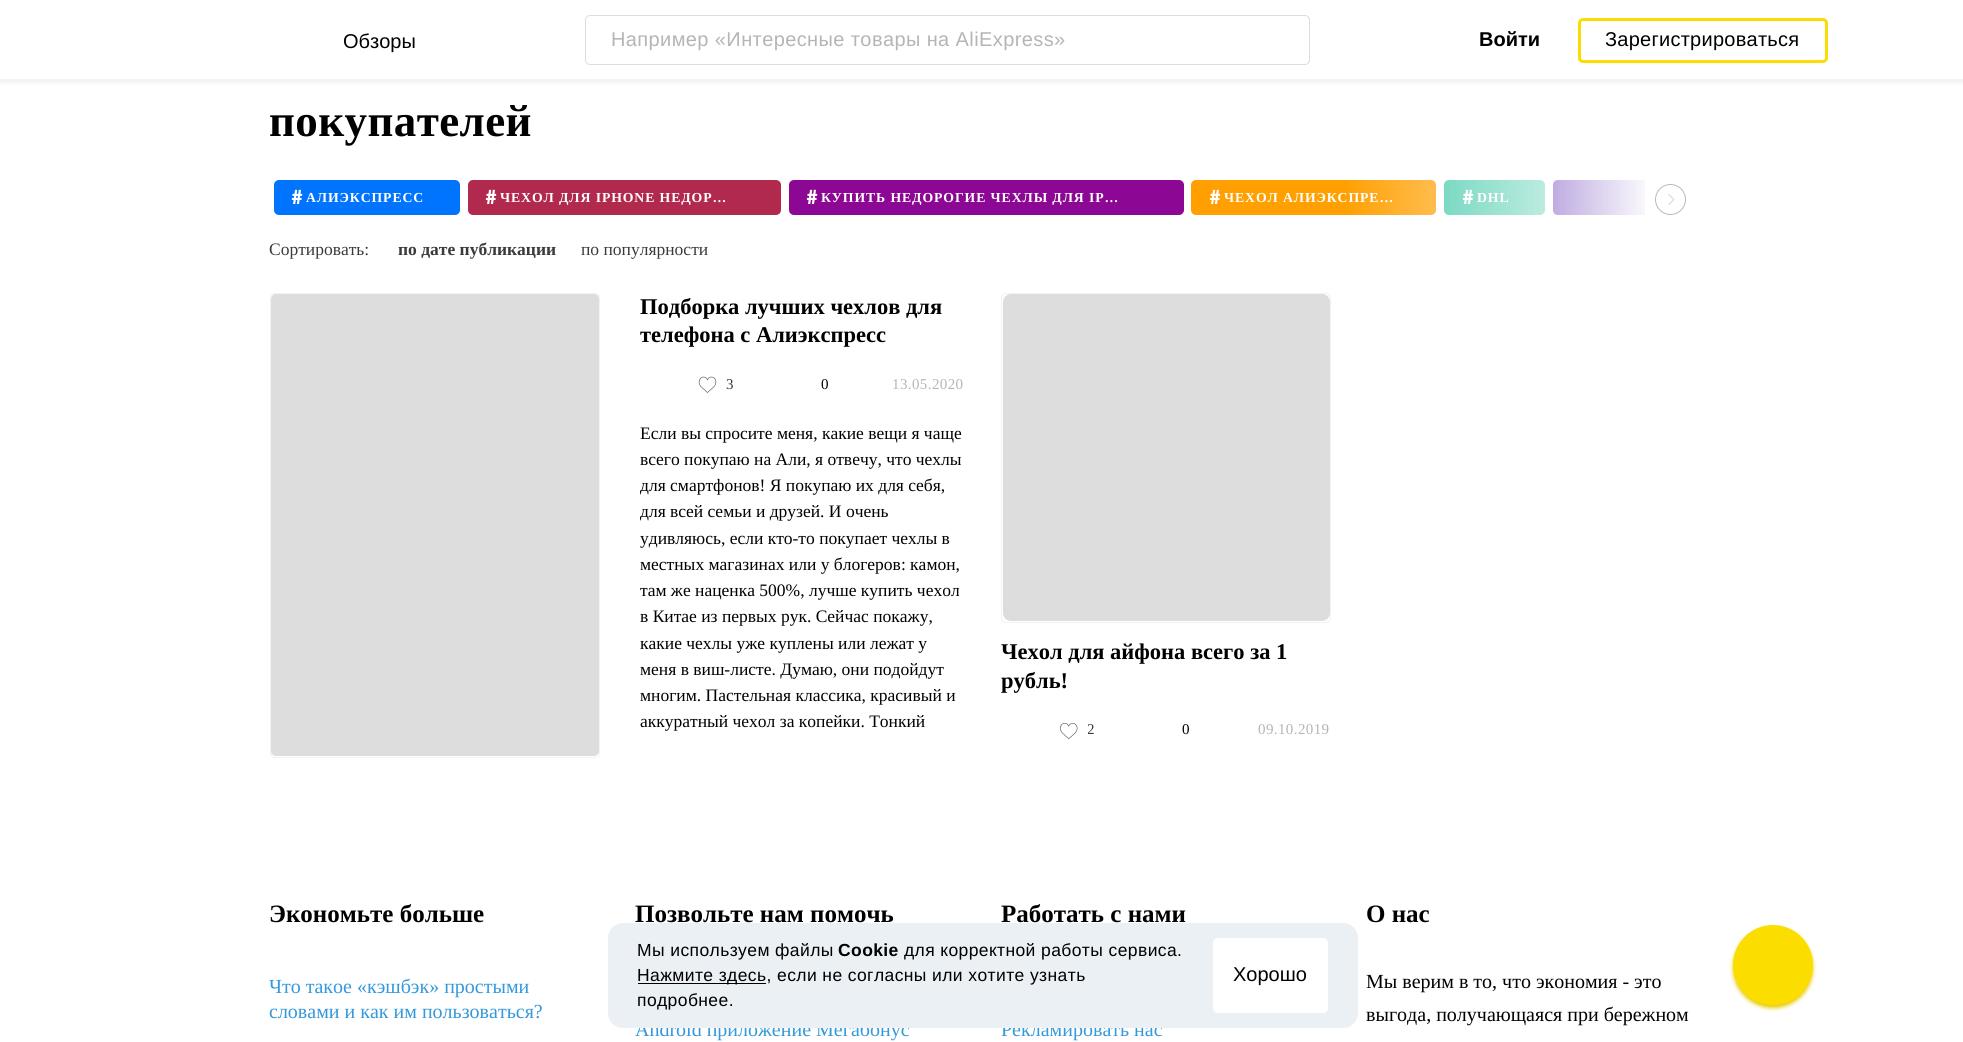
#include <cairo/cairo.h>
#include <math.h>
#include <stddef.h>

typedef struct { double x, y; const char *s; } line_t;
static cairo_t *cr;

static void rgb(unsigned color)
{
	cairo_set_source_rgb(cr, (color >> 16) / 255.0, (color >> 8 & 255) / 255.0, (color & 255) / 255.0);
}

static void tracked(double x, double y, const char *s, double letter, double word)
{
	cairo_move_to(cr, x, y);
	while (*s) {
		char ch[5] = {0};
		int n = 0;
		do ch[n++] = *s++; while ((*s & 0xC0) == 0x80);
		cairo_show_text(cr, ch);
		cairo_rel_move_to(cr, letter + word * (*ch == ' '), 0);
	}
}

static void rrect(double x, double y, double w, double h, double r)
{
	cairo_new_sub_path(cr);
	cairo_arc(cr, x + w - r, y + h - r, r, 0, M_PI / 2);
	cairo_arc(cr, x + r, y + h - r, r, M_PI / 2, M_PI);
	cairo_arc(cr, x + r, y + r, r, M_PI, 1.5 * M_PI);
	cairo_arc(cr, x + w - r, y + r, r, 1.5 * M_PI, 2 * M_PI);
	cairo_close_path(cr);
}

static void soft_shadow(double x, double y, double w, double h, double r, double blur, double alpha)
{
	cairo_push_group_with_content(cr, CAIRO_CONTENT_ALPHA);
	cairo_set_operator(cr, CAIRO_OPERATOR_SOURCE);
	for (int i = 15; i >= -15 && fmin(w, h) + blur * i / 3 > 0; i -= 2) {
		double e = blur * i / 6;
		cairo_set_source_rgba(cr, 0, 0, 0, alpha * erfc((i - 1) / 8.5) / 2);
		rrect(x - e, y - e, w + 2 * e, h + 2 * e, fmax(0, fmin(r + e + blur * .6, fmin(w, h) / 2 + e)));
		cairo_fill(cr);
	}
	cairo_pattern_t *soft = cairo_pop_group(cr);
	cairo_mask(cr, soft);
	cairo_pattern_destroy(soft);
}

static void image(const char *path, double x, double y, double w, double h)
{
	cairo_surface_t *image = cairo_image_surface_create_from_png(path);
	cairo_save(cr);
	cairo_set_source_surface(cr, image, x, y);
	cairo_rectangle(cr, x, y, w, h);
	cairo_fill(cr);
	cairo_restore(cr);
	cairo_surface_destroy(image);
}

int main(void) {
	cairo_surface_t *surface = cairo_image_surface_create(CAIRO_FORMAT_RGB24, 1963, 1042);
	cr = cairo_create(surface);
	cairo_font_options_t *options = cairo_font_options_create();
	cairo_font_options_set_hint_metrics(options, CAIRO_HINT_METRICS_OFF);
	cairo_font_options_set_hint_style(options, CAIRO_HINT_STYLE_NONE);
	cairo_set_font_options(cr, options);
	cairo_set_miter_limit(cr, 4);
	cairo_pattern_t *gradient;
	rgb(0xffffff);
	cairo_paint(cr);
	rgb(0x000000);
	soft_shadow(0, 3, 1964, 80, 0, 2, 0.06);
	rgb(0xffffff);
	cairo_rectangle(cr, 0, 1, 1963, 78);
	cairo_fill(cr);
	rgb(0xf4f4f4);
	cairo_rectangle(cr, 0, 79, 1963, 1);
	cairo_fill(cr);
	rrect(585.5, 15.5, 724, 49, 4.5);
	rgb(0xdddddd);
	cairo_set_line_width(cr, 1);
	cairo_stroke(cr);
	rrect(1579.5, 19.5, 247, 42, 3.5);
	rgb(0xfcdd00);
	cairo_set_line_width(cr, 3);
	cairo_stroke(cr);
	rgb(0x0074ff);
	rrect(274, 180, 186, 35, 5);
	cairo_fill(cr);
	rgb(0xb1294c);
	rrect(468, 180, 313, 35, 5);
	cairo_fill(cr);
	rgb(0x8c0793);
	rrect(789, 180, 395, 35, 5);
	cairo_fill(cr);
	rgb(0xff9f00);
	rrect(1191, 180, 245, 35, 5);
	cairo_fill(cr);
	rgb(0x3cc7a5);
	rrect(1444, 180, 101, 35, 5);
	cairo_fill(cr);
	rgb(0x3900a1);
	cairo_new_path(cr);
	cairo_move_to(cr, 1558, 180);
	cairo_line_to(cr, 1695, 180);
	cairo_line_to(cr, 1695, 215);
	cairo_line_to(cr, 1558, 215);
	cairo_curve_to(cr, 1555, 215, 1553, 213, 1553, 210);
	cairo_line_to(cr, 1553, 185);
	cairo_curve_to(cr, 1553, 182, 1555, 180, 1558, 180);
	cairo_close_path(cr);
	cairo_fill(cr);
	rgb(0xffffff);
	cairo_rectangle(cr, 1645, 180, 50, 35);
	cairo_fill(cr);
	cairo_arc(cr, 1670.5, 199.5, 15, 0, 2 * M_PI);
	rgb(0xbababa);
	cairo_set_line_width(cr, 1);
	cairo_stroke(cr);
	image("img/1.png", 1668, 194, 7, 11);
	rrect(270.5, 293.5, 329, 464, 4.5);
	rgb(0xf2f2f2);
	cairo_stroke(cr);
	cairo_save(cr);
	rrect(271, 294, 328, 462, 4);
	cairo_clip(cr);
	rgb(0xdddddd);
	rrect(271, 294, 328, 462, 5);
	cairo_fill(cr);
	cairo_restore(cr);
	image("img/2.png", 698, 376, 19, 17);
	rrect(1001.5, 293.5, 329, 329, 4.5);
	cairo_stroke(cr);
	rgb(0xdddddd);
	rrect(1003, 294, 327, 327, 8);
	cairo_fill(cr);
	image("img/3.png", 1060, 723, 18, 17);
	rgb(0xe9cb00);
	soft_shadow(1733, 928, 80, 80, 40, 2, 1);
	rgb(0xfcdd00);
	cairo_arc(cr, 1773, 965, 40, 0, 2 * M_PI);
	cairo_fill(cr);
	cairo_select_font_face(cr, "Liberation Sans", CAIRO_FONT_SLANT_NORMAL, CAIRO_FONT_WEIGHT_NORMAL);
	cairo_set_font_size(cr, 20);
	rgb(0x000000);
	cairo_move_to(cr, 343, 48);
	cairo_show_text(cr, "Обзоры");
	rgb(0xb5b5b5);
	tracked(611, 46, "Например «Интересные товары на AliExpress»", 0.4, 0);
	cairo_select_font_face(cr, "Liberation Sans", CAIRO_FONT_SLANT_NORMAL, CAIRO_FONT_WEIGHT_BOLD);
	rgb(0x000000);
	cairo_move_to(cr, 1479, 46);
	cairo_show_text(cr, "Войти");
	cairo_select_font_face(cr, "Liberation Sans", CAIRO_FONT_SLANT_NORMAL, CAIRO_FONT_WEIGHT_NORMAL);
	tracked(1605, 46, "Зарегистрироваться", 0.25, 0);
	cairo_select_font_face(cr, "Liberation Serif", CAIRO_FONT_SLANT_NORMAL, CAIRO_FONT_WEIGHT_BOLD);
	cairo_set_font_size(cr, 45);
	tracked(269, 136, "покупателей", 0.4, 0);
	cairo_select_font_face(cr, "Avenir Next", CAIRO_FONT_SLANT_NORMAL, CAIRO_FONT_WEIGHT_BOLD);
	cairo_set_font_size(cr, 20);
	rgb(0xffffff);
	tracked(291, 204, "#", 0.4, 0);
	cairo_select_font_face(cr, "Liberation Serif", CAIRO_FONT_SLANT_NORMAL, CAIRO_FONT_WEIGHT_BOLD);
	cairo_set_font_size(cr, 13.75);
	tracked(306, 202, "АЛИЭКСПРЕСС", 0.9, 0);
	cairo_select_font_face(cr, "Avenir Next", CAIRO_FONT_SLANT_NORMAL, CAIRO_FONT_WEIGHT_BOLD);
	cairo_set_font_size(cr, 20);
	tracked(485, 204, "#", 0.4, 0);
	cairo_select_font_face(cr, "Liberation Serif", CAIRO_FONT_SLANT_NORMAL, CAIRO_FONT_WEIGHT_BOLD);
	cairo_set_font_size(cr, 13.75);
	tracked(500, 202, "ЧЕХОЛ ДЛЯ IPHONE НЕДОР…", 0.9, 0);
	cairo_select_font_face(cr, "Avenir Next", CAIRO_FONT_SLANT_NORMAL, CAIRO_FONT_WEIGHT_BOLD);
	cairo_set_font_size(cr, 20);
	tracked(806, 204, "#", 0.4, 0);
	cairo_select_font_face(cr, "Liberation Serif", CAIRO_FONT_SLANT_NORMAL, CAIRO_FONT_WEIGHT_BOLD);
	cairo_set_font_size(cr, 13.75);
	tracked(821, 202, "КУПИТЬ НЕДОРОГИЕ ЧЕХЛЫ ДЛЯ IP…", 0.9, 0);
	cairo_select_font_face(cr, "Avenir Next", CAIRO_FONT_SLANT_NORMAL, CAIRO_FONT_WEIGHT_BOLD);
	cairo_set_font_size(cr, 20);
	tracked(1209, 204, "#", 0.4, 0);
	cairo_select_font_face(cr, "Liberation Serif", CAIRO_FONT_SLANT_NORMAL, CAIRO_FONT_WEIGHT_BOLD);
	cairo_set_font_size(cr, 13.75);
	tracked(1224, 202, "ЧЕХОЛ АЛИЭКСПРЕ…", 0.9, 0);
	cairo_select_font_face(cr, "Avenir Next", CAIRO_FONT_SLANT_NORMAL, CAIRO_FONT_WEIGHT_BOLD);
	cairo_set_font_size(cr, 20);
	tracked(1462, 204, "#", 0.4, 0);
	cairo_select_font_face(cr, "Liberation Serif", CAIRO_FONT_SLANT_NORMAL, CAIRO_FONT_WEIGHT_BOLD);
	cairo_set_font_size(cr, 13.75);
	tracked(1477, 202, "DHL", 0.9, 0);
	gradient = cairo_pattern_create_linear(1341, 201, 1654, 201);
	cairo_pattern_add_color_stop_rgba(gradient, 0, 1, 1, 1, 0);
	cairo_pattern_add_color_stop_rgba(gradient, 1, 1, 1, 1, 1);
	cairo_set_source(cr, gradient);
	cairo_pattern_destroy(gradient);
	cairo_rectangle(cr, 1348, 180, 297, 35);
	cairo_fill(cr);
	cairo_select_font_face(cr, "Liberation Serif", CAIRO_FONT_SLANT_NORMAL, CAIRO_FONT_WEIGHT_NORMAL);
	cairo_set_font_size(cr, 17.5);
	rgb(0x3a3a3a);
	cairo_move_to(cr, 269, 255);
	cairo_show_text(cr, "Сортировать:");
	cairo_select_font_face(cr, "Liberation Serif", CAIRO_FONT_SLANT_NORMAL, CAIRO_FONT_WEIGHT_BOLD);
	cairo_move_to(cr, 398, 255);
	cairo_show_text(cr, "по дате публикации");
	cairo_select_font_face(cr, "Liberation Serif", CAIRO_FONT_SLANT_NORMAL, CAIRO_FONT_WEIGHT_NORMAL);
	cairo_move_to(cr, 581, 255);
	cairo_show_text(cr, "по популярности");
	cairo_select_font_face(cr, "Liberation Serif", CAIRO_FONT_SLANT_NORMAL, CAIRO_FONT_WEIGHT_BOLD);
	cairo_set_font_size(cr, 22.5);
	rgb(0x000000);
	cairo_move_to(cr, 640, 314);
	cairo_show_text(cr, "Подборка лучших чехлов для");
	cairo_save(cr);
	cairo_rectangle(cr, 640, 293, 323, 57);
	cairo_clip(cr);
	cairo_move_to(cr, 640, 342);
	cairo_show_text(cr, "телефона с Алиэкспресс");
	cairo_restore(cr);
	cairo_select_font_face(cr, "Liberation Serif", CAIRO_FONT_SLANT_NORMAL, CAIRO_FONT_WEIGHT_NORMAL);
	cairo_set_font_size(cr, 15);
	rgb(0x3a3a3a);
	cairo_move_to(cr, 726, 389);
	cairo_show_text(cr, "3");
	rgb(0x000000);
	cairo_move_to(cr, 821, 389);
	cairo_show_text(cr, "0");
	rgb(0xb5b5b5);
	tracked(892, 389, "13.05.2020", 0.4, 0);
	cairo_set_font_size(cr, 17.5);
	rgb(0x000000);
	cairo_move_to(cr, 640, 439);
	cairo_show_text(cr, "Если вы спросите меня, какие вещи я чаще");
	cairo_move_to(cr, 640, 465);
	cairo_show_text(cr, "всего покупаю на Али, я отвечу, что чехлы");
	cairo_save(cr);
	cairo_rectangle(cr, 640, 420, 323, 313);
	cairo_clip(cr);
	cairo_move_to(cr, 640, 491);
	cairo_show_text(cr, "для смартфонов! Я покупаю их для себя,");
	cairo_move_to(cr, 640, 517);
	cairo_show_text(cr, "для всей семьи и друзей. И очень");
	cairo_restore(cr);
	{
		static const line_t items[] = {
			{640, 544, "удивляюсь, если кто-то покупает чехлы в"},
			{640, 570, "местных магазинах или у блогеров: камон,"},
			{640, 596, "там же наценка 500%, лучше купить чехол"},
			{640, 622, "в Китае из первых рук. Сейчас покажу,"},
			{640, 649, "какие чехлы уже куплены или лежат у"},
			{640, 675, "меня в виш-листе. Думаю, они подойдут"},
			{640, 701, "многим. Пастельная классика, красивый и"},
			{640, 727, "аккуратный чехол за копейки. Тонкий"},
		};
		for (size_t i = 0; i < sizeof items / sizeof *items; i++) {
			cairo_move_to(cr, items[i].x, items[i].y);
			cairo_show_text(cr, items[i].s);
		}
	}
	cairo_select_font_face(cr, "Liberation Serif", CAIRO_FONT_SLANT_NORMAL, CAIRO_FONT_WEIGHT_BOLD);
	cairo_set_font_size(cr, 22.5);
	cairo_move_to(cr, 1001, 659);
	cairo_show_text(cr, "Чехол для айфона всего за 1");
	cairo_move_to(cr, 1001, 688);
	cairo_show_text(cr, "рубль!");
	cairo_save(cr);
	cairo_rectangle(cr, 1088, 719, 7, 21);
	cairo_clip(cr);
	cairo_select_font_face(cr, "Liberation Serif", CAIRO_FONT_SLANT_NORMAL, CAIRO_FONT_WEIGHT_NORMAL);
	cairo_set_font_size(cr, 15);
	rgb(0x3a3a3a);
	cairo_move_to(cr, 1087, 734);
	cairo_show_text(cr, "2");
	cairo_restore(cr);
	cairo_select_font_face(cr, "Liberation Serif", CAIRO_FONT_SLANT_NORMAL, CAIRO_FONT_WEIGHT_NORMAL);
	cairo_set_font_size(cr, 15);
	cairo_move_to(cr, 1182, 734);
	cairo_show_text(cr, "0");
	rgb(0xb5b5b5);
	tracked(1258, 734, "09.10.2019", 0.4, 0);
	cairo_select_font_face(cr, "Liberation Serif", CAIRO_FONT_SLANT_NORMAL, CAIRO_FONT_WEIGHT_BOLD);
	cairo_set_font_size(cr, 25);
	rgb(0x000000);
	cairo_move_to(cr, 269, 922);
	cairo_show_text(cr, "Экономьте больше");
	cairo_select_font_face(cr, "Liberation Serif", CAIRO_FONT_SLANT_NORMAL, CAIRO_FONT_WEIGHT_NORMAL);
	cairo_set_font_size(cr, 20);
	rgb(0x3498db);
	cairo_move_to(cr, 269, 993);
	cairo_show_text(cr, "Что такое «кэшбэк» простыми");
	cairo_move_to(cr, 269, 1018);
	cairo_show_text(cr, "словами и как им пользоваться?");
	cairo_select_font_face(cr, "Liberation Serif", CAIRO_FONT_SLANT_NORMAL, CAIRO_FONT_WEIGHT_BOLD);
	cairo_set_font_size(cr, 25);
	rgb(0x000000);
	cairo_move_to(cr, 635, 922);
	cairo_show_text(cr, "Позвольте нам помочь");
	cairo_select_font_face(cr, "Liberation Serif", CAIRO_FONT_SLANT_NORMAL, CAIRO_FONT_WEIGHT_NORMAL);
	cairo_set_font_size(cr, 20);
	rgb(0x3498db);
	cairo_move_to(cr, 635, 1036);
	cairo_show_text(cr, "Android приложение Мегабонус");
	cairo_select_font_face(cr, "Liberation Serif", CAIRO_FONT_SLANT_NORMAL, CAIRO_FONT_WEIGHT_BOLD);
	cairo_set_font_size(cr, 25);
	rgb(0x000000);
	cairo_move_to(cr, 1001, 922);
	cairo_show_text(cr, "Работать с нами");
	cairo_select_font_face(cr, "Liberation Serif", CAIRO_FONT_SLANT_NORMAL, CAIRO_FONT_WEIGHT_NORMAL);
	cairo_set_font_size(cr, 20);
	rgb(0x3498db);
	cairo_move_to(cr, 1001, 1036);
	cairo_show_text(cr, "Рекламировать нас");
	cairo_select_font_face(cr, "Liberation Serif", CAIRO_FONT_SLANT_NORMAL, CAIRO_FONT_WEIGHT_BOLD);
	cairo_set_font_size(cr, 25);
	rgb(0x000000);
	cairo_move_to(cr, 1366, 922);
	cairo_show_text(cr, "О нас");
	cairo_select_font_face(cr, "Liberation Serif", CAIRO_FONT_SLANT_NORMAL, CAIRO_FONT_WEIGHT_NORMAL);
	cairo_set_font_size(cr, 20);
	cairo_move_to(cr, 1366, 988);
	cairo_show_text(cr, "Мы верим в то, что экономия - это");
	cairo_move_to(cr, 1366, 1021);
	cairo_show_text(cr, "выгода, получающаяся при бережном");
	rgb(0xebf0f5);
	rrect(608, 923, 750, 105, 15);
	cairo_fill(cr);
	cairo_select_font_face(cr, "Liberation Sans", CAIRO_FONT_SLANT_NORMAL, CAIRO_FONT_WEIGHT_NORMAL);
	cairo_set_font_size(cr, 17.5);
	rgb(0x000000);
	tracked(637, 956, "Мы используем файлы", 0.4, 0);
	cairo_select_font_face(cr, "Liberation Sans", CAIRO_FONT_SLANT_NORMAL, CAIRO_FONT_WEIGHT_BOLD);
	tracked(838, 956, "Cookie", 0.4, 0);
	cairo_select_font_face(cr, "Liberation Sans", CAIRO_FONT_SLANT_NORMAL, CAIRO_FONT_WEIGHT_NORMAL);
	tracked(904, 956, "для корректной работы сервиса.", 0.4, 0);
	cairo_rectangle(cr, 638, 983, 128, 1);
	cairo_fill(cr);
	tracked(637, 981, "Нажмите здесь, если не согласны или хотите узнать", 0.4, 0);
	tracked(637, 1006, "подробнее.", 0.4, 0);
	rgb(0xffffff);
	rrect(1213, 938, 115, 75, 5);
	cairo_fill(cr);
	cairo_set_font_size(cr, 20);
	rgb(0x000000);
	cairo_move_to(cr, 1233, 981);
	cairo_show_text(cr, "Хорошо");
	cairo_surface_write_to_png(surface, "page.png");
	cairo_font_options_destroy(options);
	cairo_destroy(cr);
	cairo_surface_destroy(surface);
	return 0;
}
